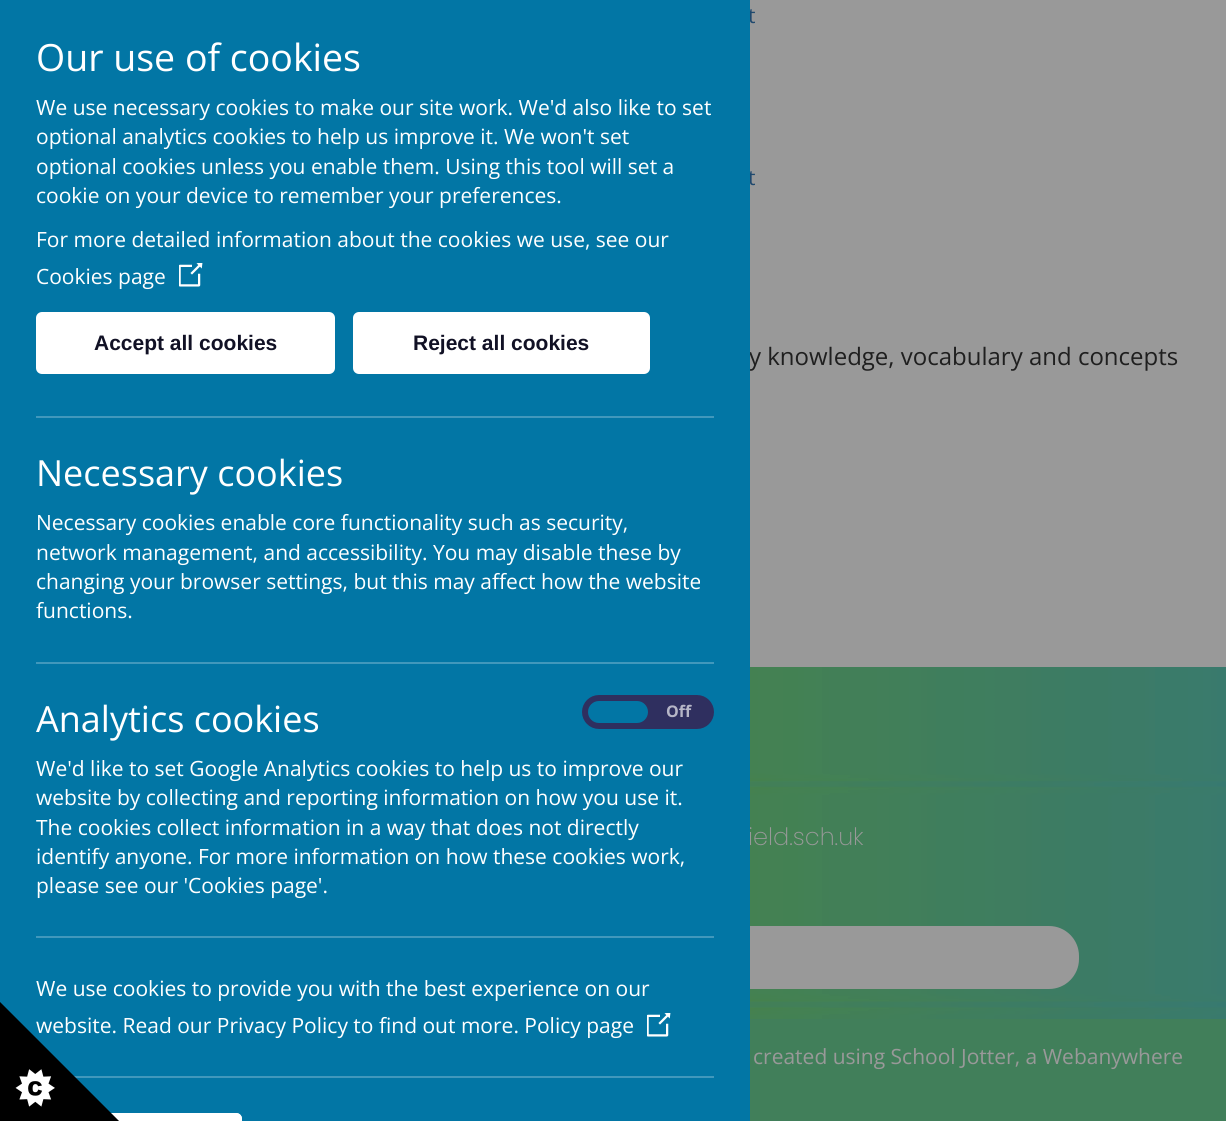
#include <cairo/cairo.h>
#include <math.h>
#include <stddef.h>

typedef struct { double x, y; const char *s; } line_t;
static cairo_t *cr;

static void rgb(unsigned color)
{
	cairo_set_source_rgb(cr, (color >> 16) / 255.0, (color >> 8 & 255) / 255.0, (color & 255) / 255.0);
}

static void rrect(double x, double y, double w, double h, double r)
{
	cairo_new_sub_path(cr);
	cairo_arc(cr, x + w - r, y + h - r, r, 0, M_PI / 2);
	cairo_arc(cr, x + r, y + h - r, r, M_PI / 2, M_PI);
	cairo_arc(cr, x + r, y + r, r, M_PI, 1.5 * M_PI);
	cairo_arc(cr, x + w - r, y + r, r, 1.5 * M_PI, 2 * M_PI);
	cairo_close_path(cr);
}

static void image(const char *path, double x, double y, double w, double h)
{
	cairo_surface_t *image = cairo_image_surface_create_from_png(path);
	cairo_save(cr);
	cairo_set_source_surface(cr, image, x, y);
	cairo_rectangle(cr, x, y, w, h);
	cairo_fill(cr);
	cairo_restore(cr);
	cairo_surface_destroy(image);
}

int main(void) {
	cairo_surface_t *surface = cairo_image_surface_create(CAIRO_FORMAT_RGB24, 1226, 1121);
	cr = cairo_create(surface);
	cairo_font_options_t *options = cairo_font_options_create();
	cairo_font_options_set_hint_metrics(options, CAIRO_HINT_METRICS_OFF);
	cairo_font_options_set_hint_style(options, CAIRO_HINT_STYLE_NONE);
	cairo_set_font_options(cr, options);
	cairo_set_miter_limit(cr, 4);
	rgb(0x999999);
	cairo_paint(cr);
	image("img/1.png", 750, 667, 476, 352);
	rgb(0x417f5a);
	cairo_rectangle(cr, 750, 1019, 476, 102);
	cairo_fill(cr);
	rgb(0x999999);
	rrect(149, 926, 930, 63, 30);
	cairo_fill(cr);
	cairo_select_font_face(cr, "Open Sans", CAIRO_FONT_SLANT_NORMAL, CAIRO_FONT_WEIGHT_NORMAL);
	cairo_set_font_size(cr, 21);
	rgb(0x1f496e);
	cairo_move_to(cr, 748, 23);
	cairo_show_text(cr, "t");
	cairo_move_to(cr, 748, 185);
	cairo_show_text(cr, "t");
	cairo_set_font_size(cr, 24);
	rgb(0x1f1f1f);
	cairo_move_to(cr, 749, 365);
	cairo_show_text(cr, "y knowledge, vocabulary and concepts");
	cairo_set_font_size(cr, 21);
	rgb(0x999999);
	cairo_move_to(cr, 753, 1064);
	cairo_show_text(cr, "created using School Jotter, a Webanywhere");
	cairo_select_font_face(cr, "Poppins ExtraLight", CAIRO_FONT_SLANT_NORMAL, CAIRO_FONT_WEIGHT_NORMAL);
	cairo_set_font_size(cr, 24);
	cairo_move_to(cr, 748, 845);
	cairo_show_text(cr, "ield.sch.uk");
	rgb(0x0276a5);
	cairo_rectangle(cr, 0, 0, 750, 1121);
	cairo_fill(cr);
	rgb(0x4198bc);
	cairo_rectangle(cr, 74, 1076, 640, 2);
	cairo_fill(cr);
	cairo_select_font_face(cr, "Open Sans", CAIRO_FONT_SLANT_NORMAL, CAIRO_FONT_WEIGHT_NORMAL);
	cairo_set_font_size(cr, 21);
	rgb(0xffffff);
	cairo_move_to(cr, 36, 1033);
	cairo_show_text(cr, "website. Read our Privacy Policy to find out more. Policy page");
	cairo_new_path(cr);
	cairo_move_to(cr, 42, 1113);
	cairo_line_to(cr, 236, 1113);
	cairo_curve_to(cr, 239.5, 1113, 242, 1115.5, 242, 1119);
	cairo_line_to(cr, 242, 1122);
	cairo_line_to(cr, 36, 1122);
	cairo_line_to(cr, 36, 1119);
	cairo_curve_to(cr, 36, 1115.5, 38.5, 1113, 42, 1113);
	cairo_close_path(cr);
	cairo_fill(cr);
	rrect(37.5, 1114.5, 203, 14, 4.5);
	cairo_set_line_width(cr, 3);
	cairo_stroke(cr);
	image("img/3.png", 0, 1002, 119, 119);
	rgb(0x2f2f5f);
	rrect(585, 698, 126, 28, 14);
	cairo_fill_preserve(cr);
	cairo_set_line_width(cr, 6);
	cairo_stroke(cr);
	rgb(0x0276a5);
	rrect(588, 701, 60, 22, 11);
	cairo_fill(cr);
	cairo_select_font_face(cr, "Open Sans", CAIRO_FONT_SLANT_NORMAL, CAIRO_FONT_WEIGHT_BOLD);
	cairo_set_font_size(cr, 16);
	rgb(0xb6b6c7);
	cairo_move_to(cr, 666, 717);
	cairo_show_text(cr, "Off");
	image("img/2.png", 647, 1013, 24, 24);
	rgb(0x4198bc);
	cairo_rectangle(cr, 36, 936, 678, 2);
	cairo_fill(cr);
	cairo_select_font_face(cr, "Open Sans", CAIRO_FONT_SLANT_NORMAL, CAIRO_FONT_WEIGHT_NORMAL);
	cairo_set_font_size(cr, 21);
	rgb(0xffffff);
	{
		static const line_t items[] = {
			{36, 996, "We use cookies to provide you with the best experience on our"},
			{36, 893, "please see our 'Cookies page'."},
			{36, 864, "identify anyone. For more information on how these cookies work,"},
			{36, 835, "The cookies collect information in a way that does not directly"},
			{36, 805, "website by collecting and reporting information on how you use it."},
			{36, 776, "We'd like to set Google Analytics cookies to help us to improve our"},
		};
		for (size_t i = 0; i < sizeof items / sizeof *items; i++) {
			cairo_move_to(cr, items[i].x, items[i].y);
			cairo_show_text(cr, items[i].s);
		}
	}
	cairo_set_font_size(cr, 36);
	cairo_move_to(cr, 36, 732);
	cairo_show_text(cr, "Analytics cookies");
	rgb(0x4198bc);
	cairo_rectangle(cr, 36, 662, 678, 2);
	cairo_fill(cr);
	cairo_rectangle(cr, 36, 416, 678, 2);
	cairo_fill(cr);
	image("img/2.png", 179, 263, 24, 24);
	cairo_set_font_size(cr, 21);
	rgb(0xffffff);
	{
		static const line_t items[] = {
			{36, 618, "functions."},
			{36, 589, "changing your browser settings, but this may affect how the website"},
			{36, 560, "network management, and accessibility. You may disable these by"},
			{36, 530, "Necessary cookies enable core functionality such as security,"},
		};
		for (size_t i = 0; i < sizeof items / sizeof *items; i++) {
			cairo_move_to(cr, items[i].x, items[i].y);
			cairo_show_text(cr, items[i].s);
		}
	}
	cairo_set_font_size(cr, 36);
	cairo_move_to(cr, 36, 486);
	cairo_show_text(cr, "Necessary cookies");
	rrect(354.5, 313.5, 294, 59, 4.5);
	cairo_fill_preserve(cr);
	cairo_set_line_width(cr, 3);
	cairo_stroke(cr);
	cairo_select_font_face(cr, "Liberation Sans", CAIRO_FONT_SLANT_NORMAL, CAIRO_FONT_WEIGHT_BOLD);
	cairo_set_font_size(cr, 21);
	rgb(0x111125);
	cairo_move_to(cr, 413, 350);
	cairo_show_text(cr, "Reject all cookies");
	rgb(0xffffff);
	rrect(37.5, 313.5, 296, 59, 4.5);
	cairo_fill_preserve(cr);
	cairo_stroke(cr);
	rgb(0x111125);
	cairo_move_to(cr, 94, 350);
	cairo_show_text(cr, "Accept all cookies");
	cairo_select_font_face(cr, "Open Sans", CAIRO_FONT_SLANT_NORMAL, CAIRO_FONT_WEIGHT_NORMAL);
	rgb(0xffffff);
	{
		static const line_t items[] = {
			{36, 284, "Cookies page"},
			{36, 247, "For more detailed information about the cookies we use, see our"},
			{36, 203, "cookie on your device to remember your preferences."},
			{36, 174, "optional cookies unless you enable them. Using this tool will set a"},
			{36, 144, "optional analytics cookies to help us improve it. We won't set"},
			{36, 115, "We use necessary cookies to make our site work. We'd also like to set"},
		};
		for (size_t i = 0; i < sizeof items / sizeof *items; i++) {
			cairo_move_to(cr, items[i].x, items[i].y);
			cairo_show_text(cr, items[i].s);
		}
	}
	cairo_set_font_size(cr, 37.5);
	cairo_move_to(cr, 36, 71);
	cairo_show_text(cr, "Our use of cookies");
	cairo_surface_write_to_png(surface, "page.png");
	cairo_font_options_destroy(options);
	cairo_destroy(cr);
	cairo_surface_destroy(surface);
	return 0;
}
